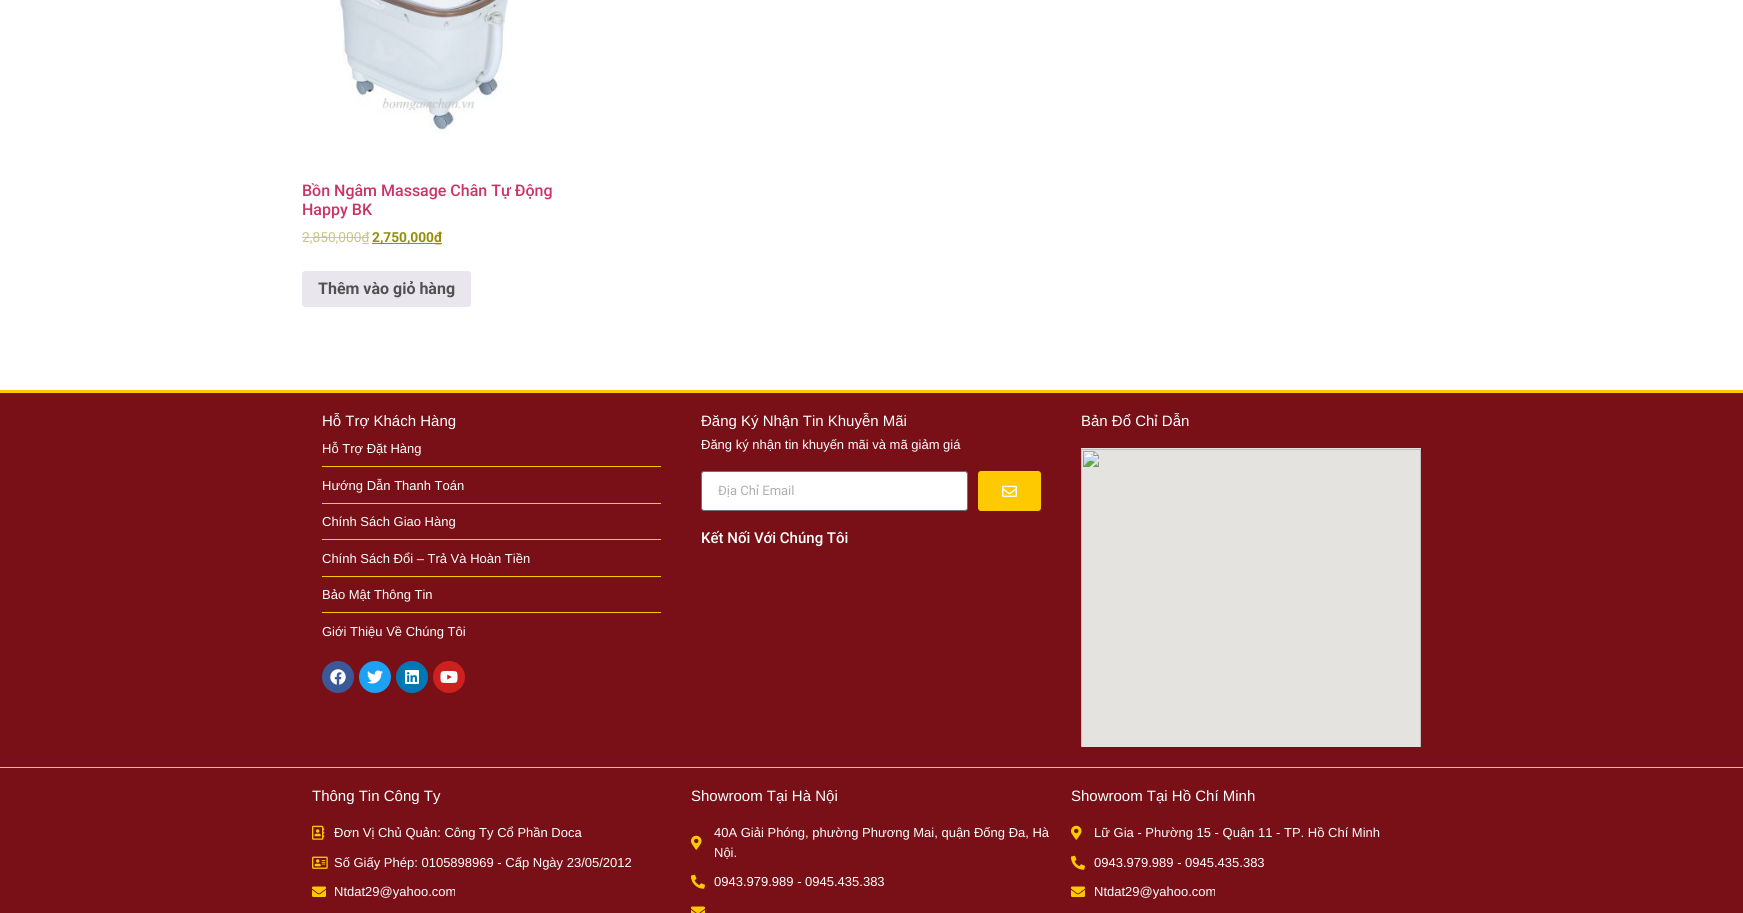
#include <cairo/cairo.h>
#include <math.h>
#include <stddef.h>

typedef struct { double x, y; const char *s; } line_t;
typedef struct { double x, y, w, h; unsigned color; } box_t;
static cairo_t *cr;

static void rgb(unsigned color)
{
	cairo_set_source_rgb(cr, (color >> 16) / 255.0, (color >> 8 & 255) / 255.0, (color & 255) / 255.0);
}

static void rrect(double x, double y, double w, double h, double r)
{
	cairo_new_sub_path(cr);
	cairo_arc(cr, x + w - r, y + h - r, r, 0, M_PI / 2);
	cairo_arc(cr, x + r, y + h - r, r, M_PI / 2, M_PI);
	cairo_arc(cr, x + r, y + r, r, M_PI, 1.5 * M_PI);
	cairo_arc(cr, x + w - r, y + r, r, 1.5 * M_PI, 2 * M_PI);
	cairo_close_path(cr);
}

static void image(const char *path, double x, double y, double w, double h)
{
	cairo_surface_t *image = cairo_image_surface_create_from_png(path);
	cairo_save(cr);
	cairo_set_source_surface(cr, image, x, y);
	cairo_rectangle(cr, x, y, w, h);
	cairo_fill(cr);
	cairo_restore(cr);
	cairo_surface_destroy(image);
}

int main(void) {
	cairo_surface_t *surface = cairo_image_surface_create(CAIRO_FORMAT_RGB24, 1743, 913);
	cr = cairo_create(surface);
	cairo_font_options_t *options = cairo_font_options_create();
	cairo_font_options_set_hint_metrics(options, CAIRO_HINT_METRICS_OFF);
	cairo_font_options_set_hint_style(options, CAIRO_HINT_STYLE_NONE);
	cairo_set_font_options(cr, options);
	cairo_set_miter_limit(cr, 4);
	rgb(0xffffff);
	cairo_paint(cr);
	image("img/1.png", 338, 0, 171, 134);
	rgb(0xcac784);
	cairo_rectangle(cr, 302, 237, 67, 1);
	cairo_fill(cr);
	rgb(0x958e09);
	cairo_rectangle(cr, 372, 243, 70, 1);
	cairo_fill(cr);
	rgb(0xe9e6ed);
	rrect(302, 271, 169, 36, 3);
	cairo_fill(cr);
	{
		static const box_t items[] = {
			{0, 393, 1743, 374, 0x791017},
			{0, 390, 1743, 3, 0xffc900},
			{322, 466, 339, 1, 0xffc900},
			{322, 503, 339, 1, 0xffc900},
			{322, 539, 339, 1, 0xffc900},
			{322, 576, 339, 1, 0xffc900},
			{322, 612, 339, 1, 0xffc900},
		};
		for (size_t i = 0; i < sizeof items / sizeof *items; i++) {
			rgb(items[i].color);
			cairo_rectangle(cr, items[i].x, items[i].y, items[i].w, items[i].h);
			cairo_fill(cr);
		}
	}
	rgb(0x3b5998);
	cairo_arc(cr, 338, 677, 16, 0, 2 * M_PI);
	cairo_fill(cr);
	image("img/2.png", 330, 669, 16, 16);
	rgb(0x1da1f2);
	cairo_arc(cr, 375, 677, 16, 0, 2 * M_PI);
	cairo_fill(cr);
	image("img/3.png", 367, 670, 16, 14);
	rgb(0x0077b5);
	cairo_arc(cr, 412, 677, 16, 0, 2 * M_PI);
	cairo_fill(cr);
	image("img/4.png", 405, 670, 14, 14);
	rgb(0xcd201f);
	cairo_arc(cr, 449, 677, 16, 0, 2 * M_PI);
	cairo_fill(cr);
	image("img/5.png", 440, 671, 18, 12);
	rgb(0xffffff);
	rrect(701.5, 471.5, 266, 39, 2.5);
	cairo_fill_preserve(cr);
	rgb(0x69727d);
	cairo_set_line_width(cr, 1);
	cairo_stroke(cr);
	rgb(0xffc900);
	rrect(978, 471, 63, 40, 3);
	cairo_fill(cr);
	image("img/6.png", 1002, 485, 15, 12);
	image("img/7.png", 1081, 448, 340, 299);
	rgb(0x791017);
	cairo_rectangle(cr, 0, 768, 1743, 145);
	cairo_fill(cr);
	rgb(0xffc900);
	cairo_rectangle(cr, 0, 767, 1743, 1);
	cairo_fill(cr);
	image("img/8.png", 312, 825, 13, 15);
	image("img/9.png", 312, 856, 16, 13);
	image("img/10.png", 312, 886, 14, 11);
	image("img/11.png", 691, 835, 11, 15);
	image("img/12.png", 691, 874, 14, 15);
	image("img/13.png", 691, 906, 14, 7);
	image("img/11.png", 1071, 825, 11, 15);
	image("img/12.png", 1071, 855, 14, 15);
	image("img/10.png", 1071, 886, 14, 11);
	cairo_select_font_face(cr, "Roboto Medium", CAIRO_FONT_SLANT_NORMAL, CAIRO_FONT_WEIGHT_NORMAL);
	cairo_set_font_size(cr, 16);
	rgb(0xcc3366);
	cairo_move_to(cr, 302, 196);
	cairo_show_text(cr, "Bồn Ngâm Massage Chân Tự Động");
	cairo_move_to(cr, 302, 215);
	cairo_show_text(cr, "Happy BK");
	cairo_select_font_face(cr, "Roboto", CAIRO_FONT_SLANT_NORMAL, CAIRO_FONT_WEIGHT_NORMAL);
	cairo_set_font_size(cr, 13.75);
	rgb(0xcac784);
	cairo_move_to(cr, 302, 242);
	cairo_show_text(cr, "2,850,000₫");
	cairo_select_font_face(cr, "Roboto", CAIRO_FONT_SLANT_NORMAL, CAIRO_FONT_WEIGHT_BOLD);
	rgb(0x958e09);
	cairo_move_to(cr, 372, 242);
	cairo_show_text(cr, "2,750,000₫");
	cairo_set_font_size(cr, 16);
	rgb(0x515151);
	cairo_move_to(cr, 318, 294);
	cairo_show_text(cr, "Thêm vào giỏ hàng");
	cairo_select_font_face(cr, "Liberation Sans", CAIRO_FONT_SLANT_NORMAL, CAIRO_FONT_WEIGHT_NORMAL);
	cairo_set_font_size(cr, 15);
	rgb(0xffffff);
	cairo_move_to(cr, 322, 426);
	cairo_show_text(cr, "Hỗ Trợ Khách Hàng");
	cairo_set_font_size(cr, 13);
	{
		static const line_t items[] = {
			{322, 453, "Hỗ Trợ Đặt Hàng"},
			{322, 490, "Hướng Dẫn Thanh Toán"},
			{322, 526, "Chính Sách Giao Hàng"},
			{322, 563, "Chính Sách Đổi – Trả Và Hoàn Tiền"},
			{322, 599, "Bảo Mật Thông Tin"},
			{322, 636, "Giới Thiệu Về Chúng Tôi"},
		};
		for (size_t i = 0; i < sizeof items / sizeof *items; i++) {
			cairo_move_to(cr, items[i].x, items[i].y);
			cairo_show_text(cr, items[i].s);
		}
	}
	cairo_set_font_size(cr, 15);
	cairo_move_to(cr, 701, 426);
	cairo_show_text(cr, "Đăng Ký Nhận Tin Khuyễn Mãi");
	cairo_set_font_size(cr, 13);
	cairo_move_to(cr, 701, 449);
	cairo_show_text(cr, "Đăng ký nhận tin khuyến mãi và mã giảm giá");
	cairo_select_font_face(cr, "Roboto", CAIRO_FONT_SLANT_NORMAL, CAIRO_FONT_WEIGHT_NORMAL);
	rgb(0xafafaf);
	cairo_move_to(cr, 718, 495);
	cairo_show_text(cr, "Địa Chỉ Email");
	cairo_select_font_face(cr, "Roboto Medium", CAIRO_FONT_SLANT_NORMAL, CAIRO_FONT_WEIGHT_NORMAL);
	cairo_set_font_size(cr, 15);
	rgb(0xffffff);
	cairo_move_to(cr, 701, 543);
	cairo_show_text(cr, "Kết Nối Với Chúng Tôi");
	cairo_select_font_face(cr, "Liberation Sans", CAIRO_FONT_SLANT_NORMAL, CAIRO_FONT_WEIGHT_NORMAL);
	cairo_move_to(cr, 1081, 426);
	cairo_show_text(cr, "Bản Đổ Chỉ Dẫn");
	cairo_move_to(cr, 312, 801);
	cairo_show_text(cr, "Thông Tin Công Ty");
	cairo_set_font_size(cr, 13);
	{
		static const line_t items[] = {
			{334, 837, "Đơn Vị Chủ Quản: Công Ty Cổ Phần Doca"},
			{334, 867, "Số Giấy Phép: 0105898969 - Cấp Ngày 23/05/2012"},
			{334, 896, "Ntdat29@yahoo.com"},
		};
		for (size_t i = 0; i < sizeof items / sizeof *items; i++) {
			cairo_move_to(cr, items[i].x, items[i].y);
			cairo_show_text(cr, items[i].s);
		}
	}
	cairo_set_font_size(cr, 15);
	cairo_move_to(cr, 691, 801);
	cairo_show_text(cr, "Showroom Tại Hà Nội");
	cairo_set_font_size(cr, 13);
	{
		static const line_t items[] = {
			{714, 837, "40A Giải Phóng, phường Phương Mai, quận Đống Đa, Hà"},
			{714, 857, "Nội."},
			{714, 886, "0943.979.989 - 0945.435.383"},
		};
		for (size_t i = 0; i < sizeof items / sizeof *items; i++) {
			cairo_move_to(cr, items[i].x, items[i].y);
			cairo_show_text(cr, items[i].s);
		}
	}
	cairo_set_font_size(cr, 15);
	cairo_move_to(cr, 1071, 801);
	cairo_show_text(cr, "Showroom Tại Hồ Chí Minh");
	cairo_set_font_size(cr, 13);
	{
		static const line_t items[] = {
			{1094, 837, "Lữ Gia - Phường 15 - Quận 11 - TP. Hồ Chí Minh"},
			{1094, 867, "0943.979.989 - 0945.435.383"},
			{1094, 896, "Ntdat29@yahoo.com"},
		};
		for (size_t i = 0; i < sizeof items / sizeof *items; i++) {
			cairo_move_to(cr, items[i].x, items[i].y);
			cairo_show_text(cr, items[i].s);
		}
	}
	cairo_surface_write_to_png(surface, "page.png");
	cairo_font_options_destroy(options);
	cairo_destroy(cr);
	cairo_surface_destroy(surface);
	return 0;
}
